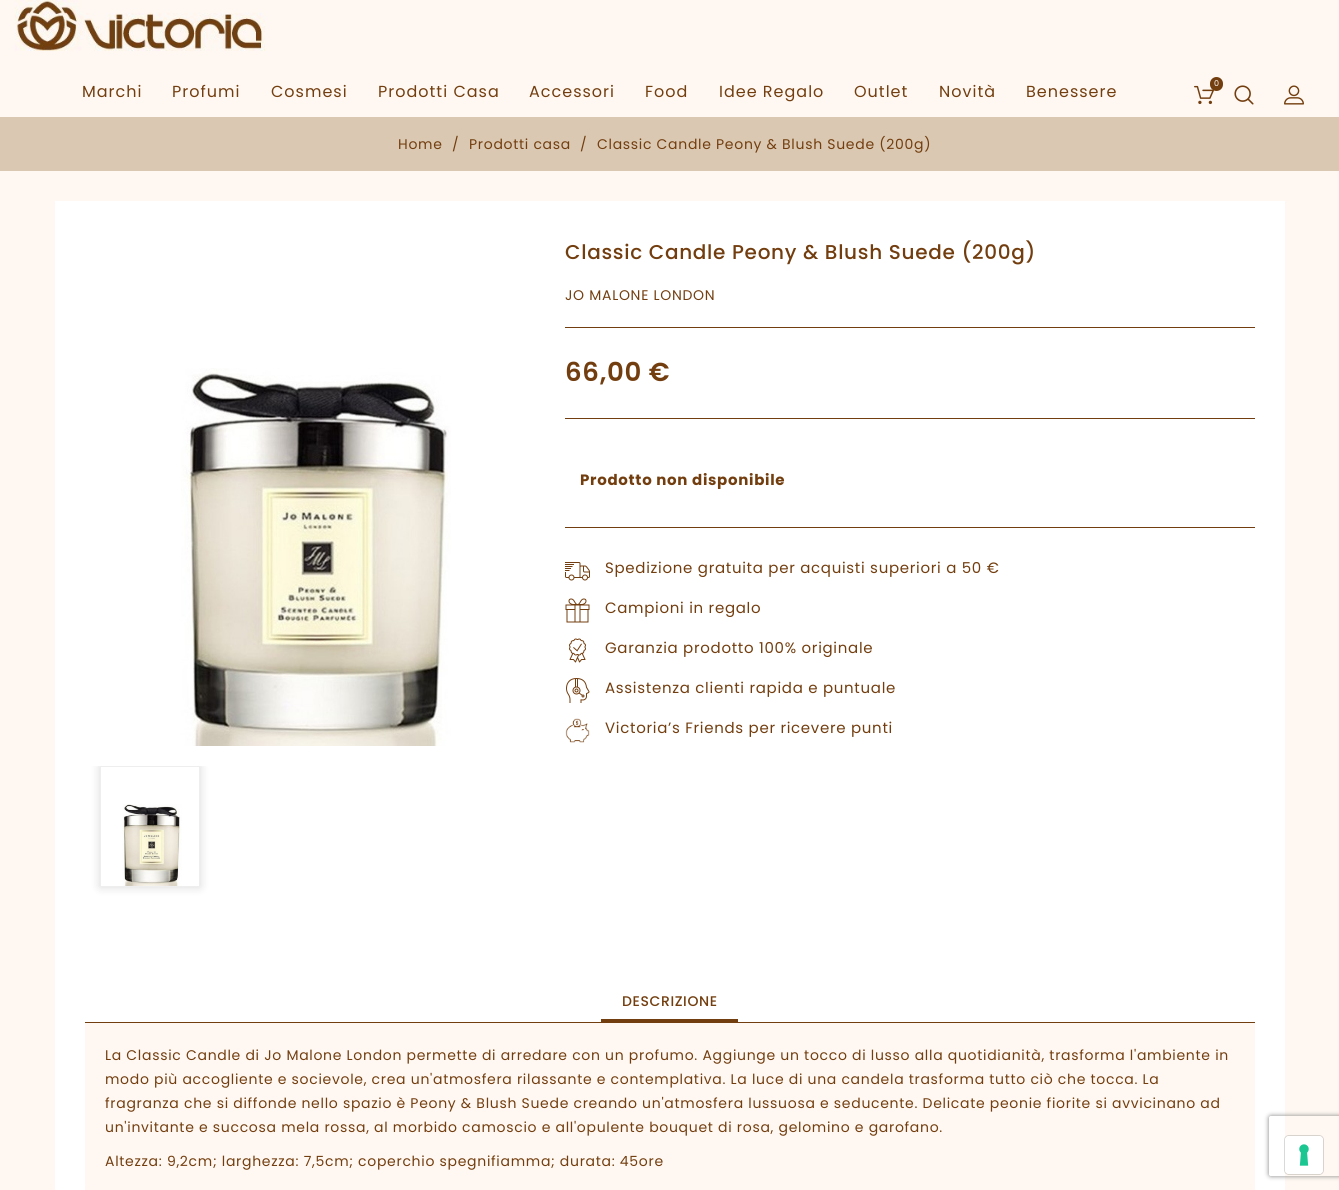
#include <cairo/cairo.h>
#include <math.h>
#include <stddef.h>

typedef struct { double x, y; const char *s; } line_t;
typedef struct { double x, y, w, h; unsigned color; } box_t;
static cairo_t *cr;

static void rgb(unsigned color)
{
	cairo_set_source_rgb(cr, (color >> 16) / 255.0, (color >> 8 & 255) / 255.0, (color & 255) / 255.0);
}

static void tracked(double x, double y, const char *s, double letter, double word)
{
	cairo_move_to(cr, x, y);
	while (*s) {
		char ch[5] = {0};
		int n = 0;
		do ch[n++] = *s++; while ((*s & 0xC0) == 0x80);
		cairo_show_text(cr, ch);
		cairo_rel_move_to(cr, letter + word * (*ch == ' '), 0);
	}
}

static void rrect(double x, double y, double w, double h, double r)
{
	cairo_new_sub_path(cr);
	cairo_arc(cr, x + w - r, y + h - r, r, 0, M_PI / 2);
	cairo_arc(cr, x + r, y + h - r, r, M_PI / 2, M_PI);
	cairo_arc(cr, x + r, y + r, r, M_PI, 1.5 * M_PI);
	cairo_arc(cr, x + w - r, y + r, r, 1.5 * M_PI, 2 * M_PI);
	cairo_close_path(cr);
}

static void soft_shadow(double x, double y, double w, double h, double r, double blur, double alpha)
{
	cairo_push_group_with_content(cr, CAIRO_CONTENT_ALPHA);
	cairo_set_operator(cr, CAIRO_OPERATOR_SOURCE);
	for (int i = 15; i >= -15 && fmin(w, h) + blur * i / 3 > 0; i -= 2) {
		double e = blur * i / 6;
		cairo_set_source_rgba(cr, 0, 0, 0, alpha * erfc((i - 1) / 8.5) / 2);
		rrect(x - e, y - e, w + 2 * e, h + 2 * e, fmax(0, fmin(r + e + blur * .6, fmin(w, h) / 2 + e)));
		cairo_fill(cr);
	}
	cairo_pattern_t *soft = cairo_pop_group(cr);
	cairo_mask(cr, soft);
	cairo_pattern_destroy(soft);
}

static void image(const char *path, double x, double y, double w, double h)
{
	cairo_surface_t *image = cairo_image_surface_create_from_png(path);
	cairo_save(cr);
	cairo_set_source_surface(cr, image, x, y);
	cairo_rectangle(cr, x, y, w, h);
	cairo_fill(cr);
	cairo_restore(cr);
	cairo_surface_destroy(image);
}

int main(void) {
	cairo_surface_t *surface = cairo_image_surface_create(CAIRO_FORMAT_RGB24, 1339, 1190);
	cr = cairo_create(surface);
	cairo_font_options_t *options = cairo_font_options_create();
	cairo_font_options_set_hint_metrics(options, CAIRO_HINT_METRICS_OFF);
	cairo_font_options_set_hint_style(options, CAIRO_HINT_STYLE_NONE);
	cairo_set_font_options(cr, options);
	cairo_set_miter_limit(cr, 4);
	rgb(0xfff8f2);
	cairo_paint(cr);
	image("img/1.png", 15, 0, 250, 51);
	image("img/2.png", 1194, 85, 20, 20);
	rgb(0x733e0f);
	rrect(1210, 77, 13, 14, 6.5);
	cairo_fill(cr);
	image("img/3.png", 1234, 85, 20, 20);
	image("img/4.png", 1284, 85, 20, 20);
	rgb(0xdac8b2);
	cairo_rectangle(cr, 0, 117, 1339, 54);
	cairo_fill(cr);
	rgb(0xffffff);
	cairo_rectangle(cr, 55, 201, 1230, 989);
	cairo_fill(cr);
	image("img/5.png", 181, 368, 270, 378);
	cairo_save(cr);
	cairo_rectangle(cr, 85, 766, 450, 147);
	cairo_clip(cr);
	cairo_set_fill_rule(cr, CAIRO_FILL_RULE_EVEN_ODD);
	cairo_new_path(cr);
	cairo_move_to(cr, 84, 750);
	cairo_line_to(cr, 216, 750);
	cairo_line_to(cr, 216, 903);
	cairo_line_to(cr, 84, 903);
	cairo_close_path(cr);
	cairo_move_to(cr, 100, 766);
	cairo_line_to(cr, 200, 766);
	cairo_line_to(cr, 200, 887);
	cairo_line_to(cr, 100, 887);
	cairo_close_path(cr);
	cairo_clip(cr);
	rgb(0x000000);
	soft_shadow(100, 766, 100, 121, 0, 5, 0.15);
	cairo_restore(cr);
	cairo_rectangle(cr, 100.5, 766.5, 99, 120);
	rgb(0xeeeeee);
	cairo_set_line_width(cr, 1);
	cairo_stroke(cr);
	image("img/6.png", 122, 804, 60, 82);
	{
		static const box_t items[] = {
			{565, 327, 690, 1, 0x733e0f},
			{565, 418, 690, 1, 0x733e0f},
			{565, 527, 690, 1, 0x733e0f},
		};
		for (size_t i = 0; i < sizeof items / sizeof *items; i++) {
			rgb(items[i].color);
			cairo_rectangle(cr, items[i].x, items[i].y, items[i].w, items[i].h);
			cairo_fill(cr);
		}
	}
	image("img/7.png", 565, 562, 25, 19);
	image("img/8.png", 565, 598, 25, 25);
	image("img/9.png", 569, 638, 17, 25);
	image("img/10.png", 566, 678, 24, 25);
	image("img/11.png", 565, 718, 25, 25);
	{
		static const box_t items[] = {
			{601, 1019, 137, 3, 0x733e0f},
			{85, 1023, 1170, 167, 0xfff8f2},
			{85, 1022, 1170, 1, 0x733e0f},
		};
		for (size_t i = 0; i < sizeof items / sizeof *items; i++) {
			rgb(items[i].color);
			cairo_rectangle(cr, items[i].x, items[i].y, items[i].w, items[i].h);
			cairo_fill(cr);
		}
	}
	cairo_save(cr);
	cairo_set_fill_rule(cr, CAIRO_FILL_RULE_EVEN_ODD);
	cairo_new_path(cr);
	cairo_move_to(cr, 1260, 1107);
	cairo_line_to(cr, 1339, 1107);
	cairo_line_to(cr, 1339, 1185);
	cairo_line_to(cr, 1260, 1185);
	cairo_close_path(cr);
	cairo_move_to(cr, 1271, 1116);
	cairo_line_to(cr, 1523, 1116);
	cairo_curve_to(cr, 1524, 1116, 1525, 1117, 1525, 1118);
	cairo_line_to(cr, 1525, 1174);
	cairo_curve_to(cr, 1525, 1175, 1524, 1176, 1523, 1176);
	cairo_line_to(cr, 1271, 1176);
	cairo_curve_to(cr, 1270, 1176, 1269, 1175, 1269, 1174);
	cairo_line_to(cr, 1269, 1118);
	cairo_curve_to(cr, 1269, 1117, 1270, 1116, 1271, 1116);
	cairo_close_path(cr);
	cairo_clip(cr);
	rgb(0x808080);
	soft_shadow(1269, 1116, 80, 60, 2, 2.5, 1);
	cairo_restore(cr);
	rrect(1284.5, 1135.5, 39, 39, 4.5);
	cairo_set_source_rgba(cr, 0, 0, 0, 0.15);
	cairo_stroke(cr);
	rgb(0xffffff);
	rrect(1285, 1136, 38, 38, 4);
	cairo_fill(cr);
	image("img/12.png", 1299, 1144, 10, 22);
	cairo_select_font_face(cr, "Poppins", CAIRO_FONT_SLANT_NORMAL, CAIRO_FONT_WEIGHT_NORMAL);
	cairo_set_font_size(cr, 8);
	tracked(1214, 86, "0", 0.7, 0);
	cairo_set_font_size(cr, 16);
	rgb(0x733e0f);
	{
		static const line_t items[] = {
			{82, 97, "Marchi"},
			{172, 97, "Profumi"},
			{271, 97, "Cosmesi"},
			{378, 97, "Prodotti Casa"},
			{529, 97, "Accessori"},
			{645, 97, "Food"},
			{719, 97, "Idee Regalo"},
			{854, 97, "Outlet"},
			{939, 97, "Novità"},
			{1026, 97, "Benessere"},
		};
		for (size_t i = 0; i < sizeof items / sizeof *items; i++) {
			tracked(items[i].x, items[i].y, items[i].s, 1, 0);
		}
	}
	cairo_set_font_size(cr, 14);
	{
		static const line_t items[] = {
			{398, 149, "Home"},
			{452, 149, "/"},
			{469, 149, "Prodotti casa"},
			{580, 149, "/"},
			{597, 149, "Classic Candle Peony & Blush Suede (200g)"},
		};
		for (size_t i = 0; i < sizeof items / sizeof *items; i++) {
			tracked(items[i].x, items[i].y, items[i].s, 0.7, 0);
		}
	}
	cairo_select_font_face(cr, "Poppins Medium", CAIRO_FONT_SLANT_NORMAL, CAIRO_FONT_WEIGHT_NORMAL);
	cairo_set_font_size(cr, 20);
	tracked(565, 259, "Classic Candle Peony & Blush Suede (200g)", 0.7, 0);
	cairo_select_font_face(cr, "Poppins", CAIRO_FONT_SLANT_NORMAL, CAIRO_FONT_WEIGHT_NORMAL);
	cairo_set_font_size(cr, 14);
	tracked(565, 300, "JO MALONE LONDON", 0.7, 0);
	cairo_select_font_face(cr, "Poppins SemiBold", CAIRO_FONT_SLANT_NORMAL, CAIRO_FONT_WEIGHT_NORMAL);
	cairo_set_font_size(cr, 26);
	tracked(565, 381, "66,00 €", 0.7, 0);
	cairo_select_font_face(cr, "Poppins", CAIRO_FONT_SLANT_NORMAL, CAIRO_FONT_WEIGHT_BOLD);
	cairo_set_font_size(cr, 15);
	tracked(580, 485, "Prodotto non disponibile", 0.7, 0);
	cairo_select_font_face(cr, "Poppins", CAIRO_FONT_SLANT_NORMAL, CAIRO_FONT_WEIGHT_NORMAL);
	{
		static const line_t items[] = {
			{605, 573, "Spedizione gratuita per acquisti superiori a 50 €"},
			{605, 613, "Campioni in regalo"},
			{605, 653, "Garanzia prodotto 100% originale"},
			{605, 693, "Assistenza clienti rapida e puntuale"},
			{605, 733, "Victoria’s Friends per ricevere punti"},
		};
		for (size_t i = 0; i < sizeof items / sizeof *items; i++) {
			tracked(items[i].x, items[i].y, items[i].s, 0.7, 0);
		}
	}
	cairo_select_font_face(cr, "Poppins Medium", CAIRO_FONT_SLANT_NORMAL, CAIRO_FONT_WEIGHT_NORMAL);
	cairo_set_font_size(cr, 14);
	tracked(622, 1006, "DESCRIZIONE", 0.6, 0);
	cairo_select_font_face(cr, "Poppins", CAIRO_FONT_SLANT_NORMAL, CAIRO_FONT_WEIGHT_NORMAL);
	{
		static const line_t items[] = {
			{105, 1060, "La Classic Candle di Jo Malone London permette di arredare con un profumo. Aggiunge un tocco di lusso alla quotidianità, trasforma l'ambiente in"},
			{105, 1084, "modo più accogliente e socievole, crea un'atmosfera rilassante e contemplativa. La luce di una candela trasforma tutto ciò che tocca. La"},
			{105, 1108, "fragranza che si diffonde nello spazio è Peony & Blush Suede creando un'atmosfera lussuosa e seducente. Delicate peonie fiorite si avvicinano ad"},
			{105, 1132, "un'invitante e succosa mela rossa, al morbido camoscio e all'opulente bouquet di rosa, gelomino e garofano."},
			{105, 1166, "Altezza: 9,2cm; larghezza: 7,5cm; coperchio spegnifiamma; durata: 45ore"},
		};
		for (size_t i = 0; i < sizeof items / sizeof *items; i++) {
			tracked(items[i].x, items[i].y, items[i].s, 0.7, 0);
		}
	}
	cairo_surface_write_to_png(surface, "page.png");
	cairo_font_options_destroy(options);
	cairo_destroy(cr);
	cairo_surface_destroy(surface);
	return 0;
}
